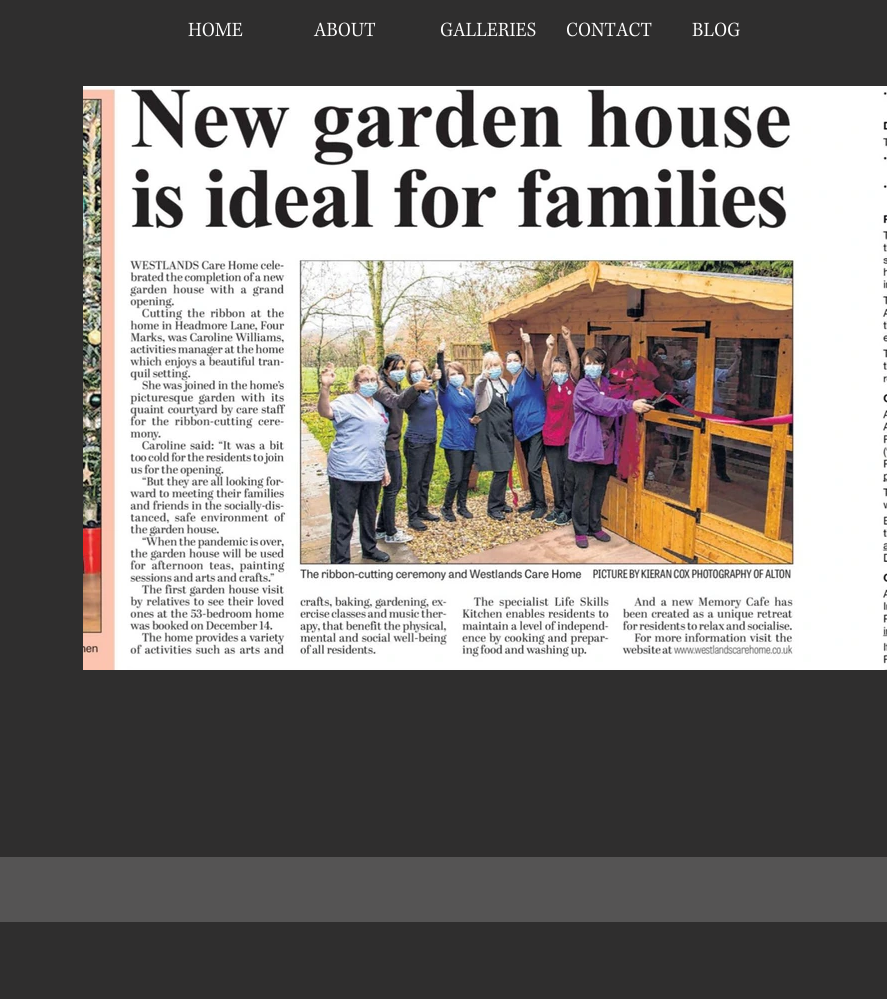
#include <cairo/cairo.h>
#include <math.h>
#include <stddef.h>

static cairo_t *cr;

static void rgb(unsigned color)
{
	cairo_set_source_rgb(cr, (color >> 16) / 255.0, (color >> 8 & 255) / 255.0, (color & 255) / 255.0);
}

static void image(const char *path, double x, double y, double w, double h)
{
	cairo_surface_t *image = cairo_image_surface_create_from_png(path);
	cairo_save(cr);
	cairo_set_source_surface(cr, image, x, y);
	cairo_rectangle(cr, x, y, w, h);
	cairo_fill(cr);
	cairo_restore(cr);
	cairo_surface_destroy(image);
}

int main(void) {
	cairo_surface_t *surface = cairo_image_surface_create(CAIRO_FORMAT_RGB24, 887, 999);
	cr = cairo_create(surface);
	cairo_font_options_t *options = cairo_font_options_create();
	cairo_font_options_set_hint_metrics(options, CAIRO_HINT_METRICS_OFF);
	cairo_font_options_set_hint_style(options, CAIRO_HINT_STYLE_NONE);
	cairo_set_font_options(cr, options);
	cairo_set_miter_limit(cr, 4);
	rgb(0x2f2e2e);
	cairo_paint(cr);
	image("img/1.png", 188, 22, 55, 15);
	image("img/2.png", 313, 22, 63, 15);
	image("img/3.png", 440, 22, 96, 15);
	image("img/4.png", 567, 22, 85, 15);
	image("img/5.png", 692, 22, 48, 15);
	image("img/6.png", 83, 86, 804, 584);
	rgb(0x555454);
	cairo_rectangle(cr, 0, 857, 887, 65);
	cairo_fill(cr);
	cairo_surface_write_to_png(surface, "page.png");
	cairo_font_options_destroy(options);
	cairo_destroy(cr);
	cairo_surface_destroy(surface);
	return 0;
}
